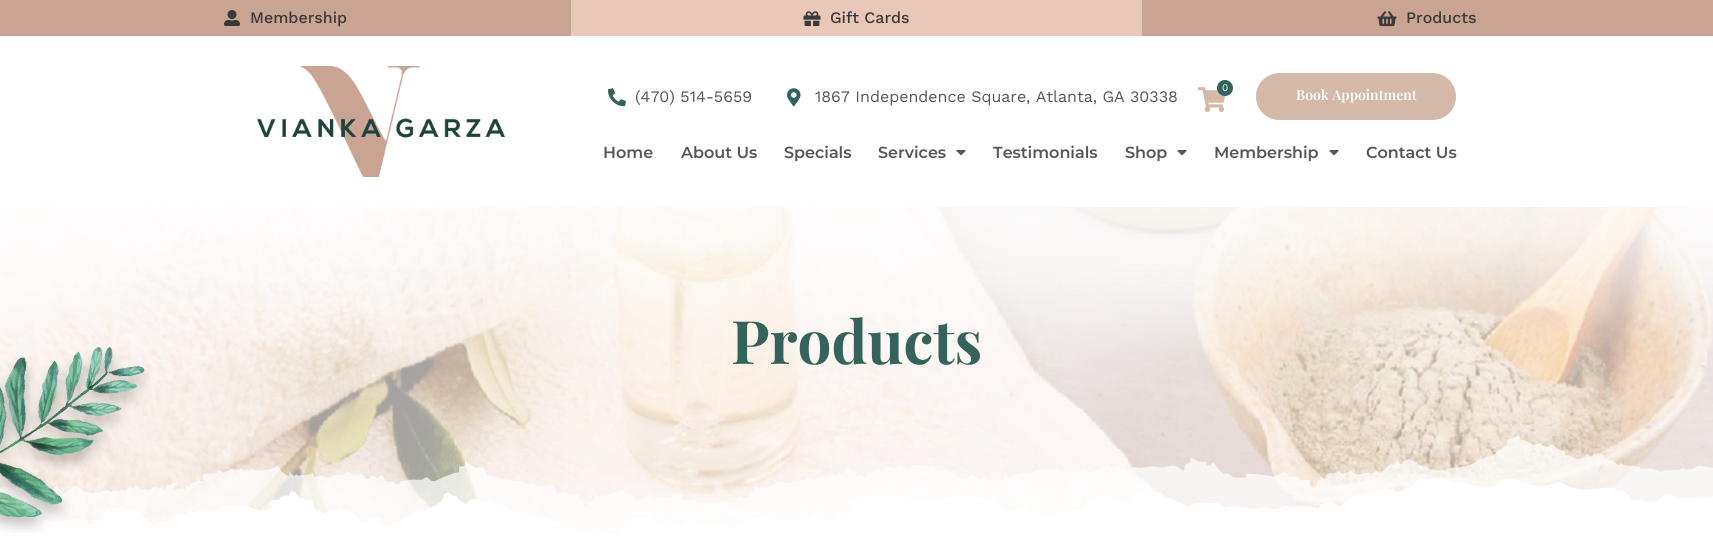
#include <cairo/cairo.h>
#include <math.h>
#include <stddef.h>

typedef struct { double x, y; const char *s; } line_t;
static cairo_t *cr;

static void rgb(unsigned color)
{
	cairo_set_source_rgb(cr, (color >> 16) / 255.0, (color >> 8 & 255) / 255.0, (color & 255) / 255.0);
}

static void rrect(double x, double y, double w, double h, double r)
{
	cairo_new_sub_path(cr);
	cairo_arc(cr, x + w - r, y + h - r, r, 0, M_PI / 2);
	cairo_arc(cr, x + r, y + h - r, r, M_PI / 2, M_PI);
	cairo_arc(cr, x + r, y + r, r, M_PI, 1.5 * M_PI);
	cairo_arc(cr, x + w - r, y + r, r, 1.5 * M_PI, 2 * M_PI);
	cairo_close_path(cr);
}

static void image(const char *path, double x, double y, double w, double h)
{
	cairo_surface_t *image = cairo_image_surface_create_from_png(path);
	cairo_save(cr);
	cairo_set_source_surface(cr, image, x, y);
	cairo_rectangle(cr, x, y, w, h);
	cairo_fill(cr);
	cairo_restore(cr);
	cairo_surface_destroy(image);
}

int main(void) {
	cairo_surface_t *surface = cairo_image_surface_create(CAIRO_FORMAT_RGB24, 1713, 558);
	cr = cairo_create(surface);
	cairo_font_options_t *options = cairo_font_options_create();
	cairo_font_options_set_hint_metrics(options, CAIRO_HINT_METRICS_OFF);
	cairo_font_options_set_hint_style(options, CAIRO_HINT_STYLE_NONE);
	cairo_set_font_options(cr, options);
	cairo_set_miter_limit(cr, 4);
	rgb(0xffffff);
	cairo_paint(cr);
	rgb(0xc9a492);
	cairo_rectangle(cr, 0, 0, 571, 36);
	cairo_fill(cr);
	image("img/1.png", 224, 10, 16, 16);
	rgb(0xeac8b8);
	cairo_rectangle(cr, 571, 0, 571, 36);
	cairo_fill(cr);
	image("img/2.png", 803, 11, 18, 16);
	rgb(0xc9a492);
	cairo_rectangle(cr, 1142, 0, 571, 36);
	cairo_fill(cr);
	image("img/3.png", 1377, 11, 20, 16);
	image("img/4.png", 257, 66, 248, 111);
	image("img/5.png", 1198, 87, 28, 26);
	rgb(0x34635b);
	cairo_arc(cr, 1225, 88, 8, 0, 2 * M_PI);
	cairo_fill(cr);
	image("img/6.png", 608, 88, 18, 19);
	image("img/7.png", 787, 88, 14, 19);
	rgb(0xd4b8a8);
	rrect(1256, 73, 200, 47, 23.5);
	cairo_fill(cr);
	image("img/8.png", 956, 150, 10, 6);
	image("img/8.png", 1177, 150, 10, 6);
	image("img/8.png", 1329, 150, 10, 6);
	image("img/9.png", 0, 207, 1713, 328);
	image("img/11.png", 0, 435, 1713, 116);
	image("img/10.png", 0, 347, 150, 186);
	cairo_select_font_face(cr, "Work Sans Medium", CAIRO_FONT_SLANT_NORMAL, CAIRO_FONT_WEIGHT_NORMAL);
	cairo_set_font_size(cr, 16);
	rgb(0x3a3a3a);
	{
		static const line_t items[] = {
			{250, 23, "Membership"},
			{830, 23, "Gift Cards"},
			{1406, 23, "Products"},
		};
		for (size_t i = 0; i < sizeof items / sizeof *items; i++) {
			cairo_move_to(cr, items[i].x, items[i].y);
			cairo_show_text(cr, items[i].s);
		}
	}
	cairo_select_font_face(cr, "Work Sans", CAIRO_FONT_SLANT_NORMAL, CAIRO_FONT_WEIGHT_NORMAL);
	cairo_set_font_size(cr, 10);
	rgb(0xffffff);
	cairo_move_to(cr, 1222, 91);
	cairo_show_text(cr, "0");
	cairo_set_font_size(cr, 16);
	rgb(0x575656);
	cairo_move_to(cr, 635, 102);
	cairo_show_text(cr, "(470) 514-5659");
	cairo_move_to(cr, 815, 102);
	cairo_show_text(cr, "1867 Independence Square, Atlanta, GA 30338");
	cairo_select_font_face(cr, "Playfair Display SemiBold", CAIRO_FONT_SLANT_NORMAL, CAIRO_FONT_WEIGHT_NORMAL);
	cairo_set_font_size(cr, 14);
	rgb(0xffffff);
	cairo_move_to(cr, 1296, 100);
	cairo_show_text(cr, "Book Appointment");
	cairo_select_font_face(cr, "Montserrat SemiBold", CAIRO_FONT_SLANT_NORMAL, CAIRO_FONT_WEIGHT_NORMAL);
	cairo_set_font_size(cr, 16);
	rgb(0x575656);
	{
		static const line_t items[] = {
			{603, 158, "Home"},
			{681, 158, "About Us"},
			{784, 158, "Specials"},
			{878, 158, "Services"},
			{993, 158, "Testimonials"},
			{1125, 158, "Shop"},
			{1214, 158, "Membership"},
			{1366, 158, "Contact Us"},
		};
		for (size_t i = 0; i < sizeof items / sizeof *items; i++) {
			cairo_move_to(cr, items[i].x, items[i].y);
			cairo_show_text(cr, items[i].s);
		}
	}
	cairo_select_font_face(cr, "Playfair Display", CAIRO_FONT_SLANT_NORMAL, CAIRO_FONT_WEIGHT_BOLD);
	cairo_set_font_size(cr, 60);
	rgb(0x34635b);
	cairo_move_to(cr, 731, 364);
	cairo_show_text(cr, "Products");
	cairo_surface_write_to_png(surface, "page.png");
	cairo_font_options_destroy(options);
	cairo_destroy(cr);
	cairo_surface_destroy(surface);
	return 0;
}
